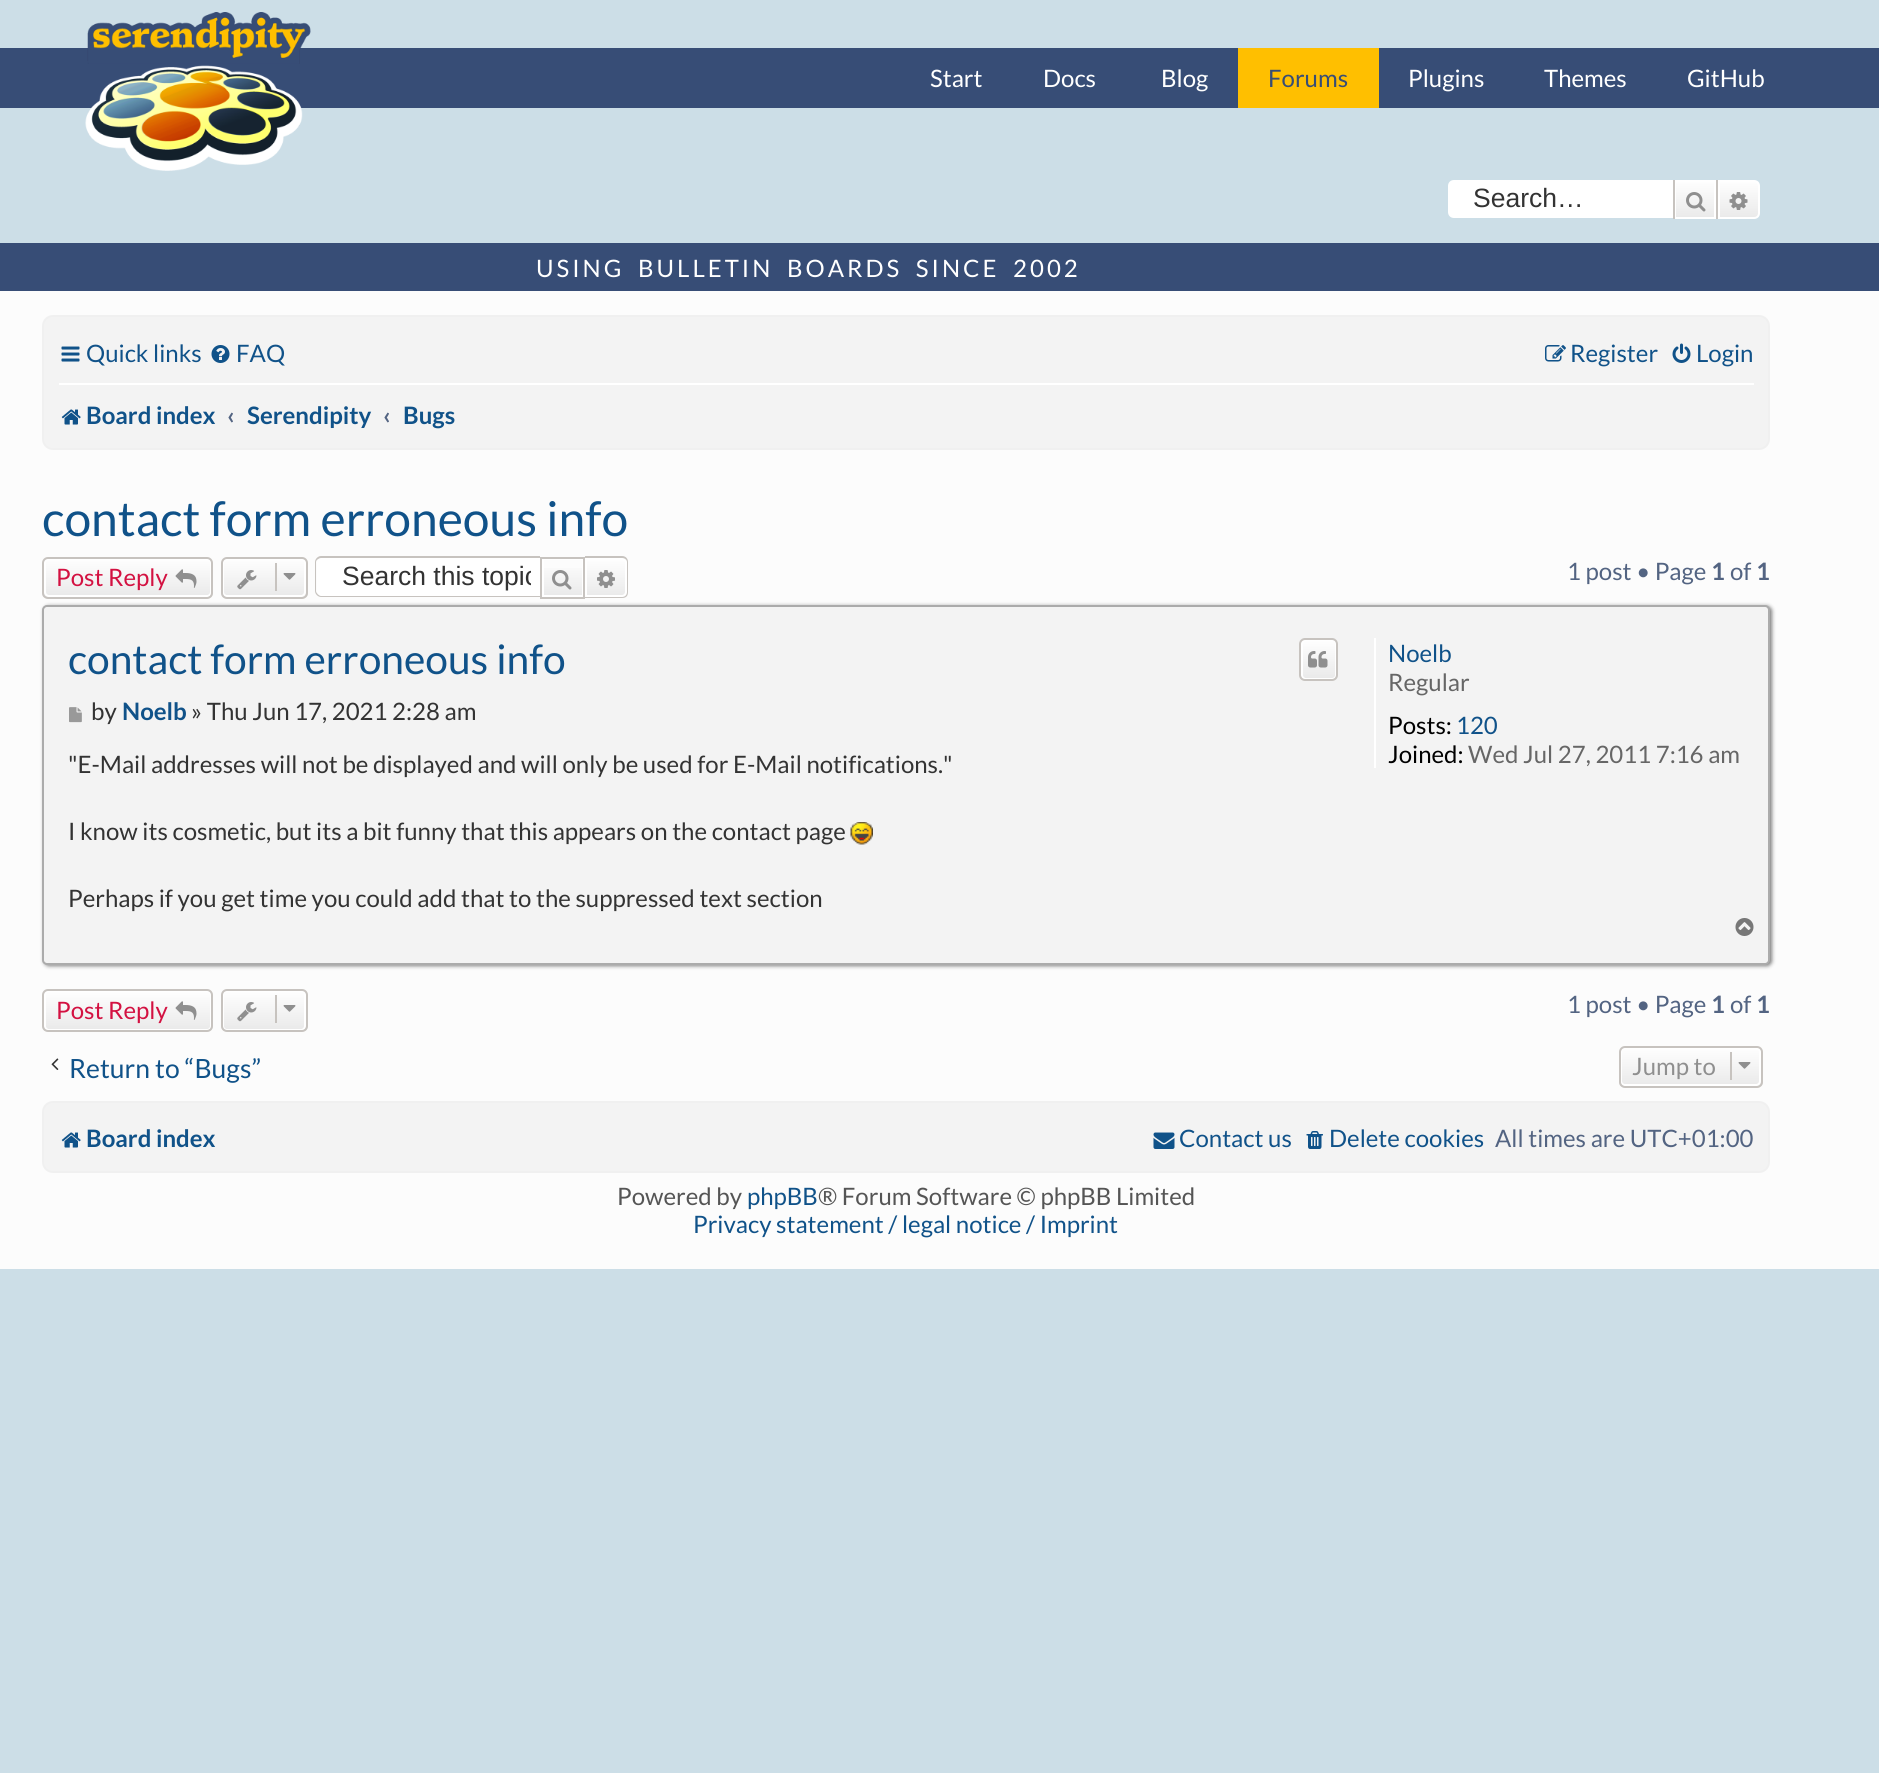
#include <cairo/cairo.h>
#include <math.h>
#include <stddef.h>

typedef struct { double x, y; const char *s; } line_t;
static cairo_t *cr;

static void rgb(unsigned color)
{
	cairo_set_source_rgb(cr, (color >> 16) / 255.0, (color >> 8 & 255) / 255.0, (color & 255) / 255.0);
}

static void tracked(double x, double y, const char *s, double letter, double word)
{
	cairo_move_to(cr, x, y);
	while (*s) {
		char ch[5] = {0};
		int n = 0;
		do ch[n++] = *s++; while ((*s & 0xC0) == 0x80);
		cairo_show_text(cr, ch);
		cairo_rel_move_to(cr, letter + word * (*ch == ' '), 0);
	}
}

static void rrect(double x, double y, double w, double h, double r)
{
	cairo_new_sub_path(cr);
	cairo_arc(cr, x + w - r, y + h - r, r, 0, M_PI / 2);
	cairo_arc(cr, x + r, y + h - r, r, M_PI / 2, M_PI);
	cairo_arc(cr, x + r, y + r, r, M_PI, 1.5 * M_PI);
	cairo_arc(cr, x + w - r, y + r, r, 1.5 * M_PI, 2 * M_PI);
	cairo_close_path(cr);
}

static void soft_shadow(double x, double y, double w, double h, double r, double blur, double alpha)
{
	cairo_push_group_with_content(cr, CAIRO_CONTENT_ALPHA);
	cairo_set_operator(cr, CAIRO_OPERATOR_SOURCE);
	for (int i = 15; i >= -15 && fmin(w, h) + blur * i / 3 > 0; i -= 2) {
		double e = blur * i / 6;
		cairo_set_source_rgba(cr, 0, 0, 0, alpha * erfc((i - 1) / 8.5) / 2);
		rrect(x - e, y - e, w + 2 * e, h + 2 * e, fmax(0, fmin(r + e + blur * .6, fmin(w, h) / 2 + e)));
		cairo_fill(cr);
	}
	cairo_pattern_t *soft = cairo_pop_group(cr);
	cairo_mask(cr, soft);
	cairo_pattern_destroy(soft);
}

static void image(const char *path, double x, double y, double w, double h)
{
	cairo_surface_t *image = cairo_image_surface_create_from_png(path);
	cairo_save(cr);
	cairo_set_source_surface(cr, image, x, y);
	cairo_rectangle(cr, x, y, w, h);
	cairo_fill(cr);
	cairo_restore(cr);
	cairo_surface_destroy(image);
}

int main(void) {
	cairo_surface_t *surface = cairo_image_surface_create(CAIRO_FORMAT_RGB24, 1879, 1773);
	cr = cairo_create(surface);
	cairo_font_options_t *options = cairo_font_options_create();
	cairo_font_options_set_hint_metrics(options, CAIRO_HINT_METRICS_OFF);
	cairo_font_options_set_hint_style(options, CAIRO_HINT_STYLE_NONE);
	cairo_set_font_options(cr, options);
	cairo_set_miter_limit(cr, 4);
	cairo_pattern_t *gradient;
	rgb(0xccdee7);
	cairo_paint(cr);
	rgb(0x374d76);
	cairo_rectangle(cr, 0, 48, 1879, 60);
	cairo_fill(cr);
	image("img/1.png", 85, 12, 226, 159);
	rgb(0xffbf00);
	cairo_rectangle(cr, 1238, 48, 141, 60);
	cairo_fill(cr);
	rgb(0xffffff);
	cairo_new_path(cr);
	cairo_move_to(cr, 1454, 180);
	cairo_line_to(cr, 1673, 180);
	cairo_line_to(cr, 1673, 218);
	cairo_line_to(cr, 1454, 218);
	cairo_curve_to(cr, 1450.5, 218, 1448, 215.5, 1448, 212);
	cairo_line_to(cr, 1448, 186);
	cairo_curve_to(cr, 1448, 182.5, 1450.5, 180, 1454, 180);
	cairo_close_path(cr);
	cairo_fill(cr);
	gradient = cairo_pattern_create_linear(1695, 180, 1695, 219);
	cairo_pattern_add_color_stop_rgba(gradient, 0, 1, 1, 1, 1);
	cairo_pattern_add_color_stop_rgba(gradient, 1, 0.914, 0.914, 0.914, 1);
	cairo_set_source(cr, gradient);
	cairo_pattern_destroy(gradient);
	cairo_rectangle(cr, 1676, 182, 38, 35);
	cairo_fill(cr);
	cairo_rectangle(cr, 1675, 181, 40, 37);
	rgb(0xffffff);
	cairo_stroke(cr);
	rgb(0xc7c3bf);
	cairo_rectangle(cr, 1716, 180, 2, 39);
	cairo_fill(cr);
	cairo_rectangle(cr, 1673, 180, 2, 39);
	cairo_fill(cr);
	image("img/2.png", 1686, 192, 20, 20);
	gradient = cairo_pattern_create_linear(1739, 180, 1739, 219);
	cairo_pattern_add_color_stop_rgba(gradient, 0, 1, 1, 1, 1);
	cairo_pattern_add_color_stop_rgba(gradient, 1, 0.914, 0.914, 0.914, 1);
	cairo_set_source(cr, gradient);
	cairo_pattern_destroy(gradient);
	cairo_new_path(cr);
	cairo_move_to(cr, 1719, 181);
	cairo_line_to(cr, 1754, 181);
	cairo_curve_to(cr, 1757, 181, 1759, 183, 1759, 186);
	cairo_line_to(cr, 1759, 213);
	cairo_curve_to(cr, 1759, 216, 1757, 218, 1754, 218);
	cairo_line_to(cr, 1719, 218);
	cairo_close_path(cr);
	cairo_fill_preserve(cr);
	rgb(0xffffff);
	cairo_stroke(cr);
	image("img/3.png", 1729, 192, 19, 18);
	rgb(0x374d76);
	cairo_rectangle(cr, 0, 243, 1879, 48);
	cairo_fill(cr);
	rgb(0xfcfcfc);
	cairo_rectangle(cr, 0, 291, 1879, 978);
	cairo_fill(cr);
	rgb(0xf3f3f3);
	rrect(43, 316, 1726, 133, 10);
	cairo_fill_preserve(cr);
	rgb(0xf0f0f0);
	cairo_stroke(cr);
	image("img/4.png", 61, 346, 19, 16);
	image("img/5.png", 211, 345, 19, 18);
	image("img/6.png", 1545, 345, 21, 17);
	image("img/7.png", 1672, 343, 19, 20);
	rgb(0xffffff);
	cairo_rectangle(cr, 59, 383, 1695, 2);
	cairo_fill(cr);
	image("img/8.png", 61, 409, 20, 16);
	cairo_save(cr);
	rrect(42, 557, 171, 42, 6);
	cairo_clip(cr);
	gradient = cairo_pattern_create_linear(128, 558, 128, 597);
	cairo_pattern_add_color_stop_rgba(gradient, 0, 1, 1, 1, 1);
	cairo_pattern_add_color_stop_rgba(gradient, 1, 0.914, 0.914, 0.914, 1);
	cairo_set_source(cr, gradient);
	cairo_pattern_destroy(gradient);
	cairo_rectangle(cr, 42, 558, 171, 39);
	cairo_fill(cr);
	cairo_restore(cr);
	rrect(45, 559, 166, 37, 4);
	cairo_stroke(cr);
	rrect(43, 558, 169, 40, 5);
	rgb(0xc7c3bf);
	cairo_stroke(cr);
	image("img/9.png", 175, 569, 22, 19);
	cairo_save(cr);
	rrect(221, 557, 87, 42, 6);
	cairo_clip(cr);
	gradient = cairo_pattern_create_linear(264, 558, 264, 597);
	cairo_pattern_add_color_stop_rgba(gradient, 0, 1, 1, 1, 1);
	cairo_pattern_add_color_stop_rgba(gradient, 1, 0.914, 0.914, 0.914, 1);
	cairo_set_source(cr, gradient);
	cairo_pattern_destroy(gradient);
	cairo_rectangle(cr, 221, 558, 87, 39);
	cairo_fill(cr);
	cairo_restore(cr);
	rrect(223, 559, 82, 37, 4);
	rgb(0xffffff);
	cairo_stroke(cr);
	rrect(222, 558, 85, 40, 5);
	rgb(0xc7c3bf);
	cairo_stroke(cr);
	image("img/10.png", 237, 570, 20, 20);
	cairo_rectangle(cr, 275, 563, 2, 28);
	cairo_fill(cr);
	image("img/11.png", 283, 573, 13, 7);
	rgb(0xffffff);
	cairo_new_path(cr);
	cairo_move_to(cr, 322, 558);
	cairo_line_to(cr, 540, 558);
	cairo_line_to(cr, 540, 596);
	cairo_line_to(cr, 322, 596);
	cairo_curve_to(cr, 319, 596, 317, 594, 317, 591);
	cairo_line_to(cr, 317, 563);
	cairo_curve_to(cr, 317, 560, 319, 558, 322, 558);
	cairo_close_path(cr);
	cairo_fill(cr);
	rgb(0xc7c3bf);
	cairo_set_fill_rule(cr, CAIRO_FILL_RULE_EVEN_ODD);
	cairo_new_path(cr);
	cairo_move_to(cr, 321, 556);
	cairo_line_to(cr, 540, 556);
	cairo_line_to(cr, 540, 597);
	cairo_line_to(cr, 321, 597);
	cairo_curve_to(cr, 318, 597, 315, 594, 315, 591);
	cairo_line_to(cr, 315, 562);
	cairo_curve_to(cr, 315, 559, 318, 556, 321, 556);
	cairo_close_path(cr);
	cairo_move_to(cr, 321, 558);
	cairo_line_to(cr, 540, 558);
	cairo_line_to(cr, 540, 596);
	cairo_line_to(cr, 321, 596);
	cairo_curve_to(cr, 319, 596, 316, 593, 316, 591);
	cairo_line_to(cr, 316, 562);
	cairo_curve_to(cr, 316, 560, 319, 558, 321, 558);
	cairo_close_path(cr);
	cairo_fill(cr);
	gradient = cairo_pattern_create_linear(563, 558, 563, 597);
	cairo_pattern_add_color_stop_rgba(gradient, 0, 1, 1, 1, 1);
	cairo_pattern_add_color_stop_rgba(gradient, 1, 0.914, 0.914, 0.914, 1);
	cairo_set_source(cr, gradient);
	cairo_pattern_destroy(gradient);
	cairo_rectangle(cr, 544, 568, 38, 27);
	cairo_fill(cr);
	cairo_rectangle(cr, 543, 559, 40, 37);
	rgb(0xffffff);
	cairo_stroke(cr);
	cairo_rectangle(cr, 541, 558, 43, 40);
	rgb(0xc7c3bf);
	cairo_stroke(cr);
	image("img/2.png", 552, 570, 20, 20);
	gradient = cairo_pattern_create_linear(606, 558, 606, 597);
	cairo_pattern_add_color_stop_rgba(gradient, 0, 1, 1, 1, 1);
	cairo_pattern_add_color_stop_rgba(gradient, 1, 0.914, 0.914, 0.914, 1);
	cairo_set_source(cr, gradient);
	cairo_pattern_destroy(gradient);
	cairo_new_path(cr);
	cairo_move_to(cr, 586, 559);
	cairo_line_to(cr, 622, 559);
	cairo_curve_to(cr, 624, 559, 626, 561, 626, 563);
	cairo_line_to(cr, 626, 592);
	cairo_curve_to(cr, 626, 594, 624, 596, 622, 596);
	cairo_line_to(cr, 586, 596);
	cairo_close_path(cr);
	cairo_fill_preserve(cr);
	rgb(0xffffff);
	cairo_stroke(cr);
	rgb(0xc7c3bf);
	cairo_new_path(cr);
	cairo_move_to(cr, 585, 556);
	cairo_line_to(cr, 622, 556);
	cairo_curve_to(cr, 626, 556, 628, 559, 628, 562);
	cairo_line_to(cr, 628, 592);
	cairo_curve_to(cr, 628, 596, 626, 598, 622, 598);
	cairo_line_to(cr, 585, 598);
	cairo_close_path(cr);
	cairo_move_to(cr, 585, 558);
	cairo_line_to(cr, 622, 558);
	cairo_curve_to(cr, 625, 558, 627, 560, 627, 562);
	cairo_line_to(cr, 627, 592);
	cairo_curve_to(cr, 627, 595, 625, 597, 622, 597);
	cairo_line_to(cr, 585, 597);
	cairo_close_path(cr);
	cairo_fill(cr);
	image("img/12.png", 597, 570, 18, 18);
	rgb(0x808080);
	soft_shadow(44, 606, 1728, 360, 5, 2, 1);
	rgb(0xf3f3f3);
	rrect(43, 606, 1726, 358, 4);
	cairo_fill_preserve(cr);
	rgb(0xababab);
	cairo_stroke(cr);
	cairo_save(cr);
	cairo_set_fill_rule(cr, CAIRO_FILL_RULE_WINDING);
	rrect(1299, 638, 39, 43, 6);
	cairo_clip(cr);
	gradient = cairo_pattern_create_linear(1319, 639, 1319, 680);
	cairo_pattern_add_color_stop_rgba(gradient, 0, 1, 1, 1, 1);
	cairo_pattern_add_color_stop_rgba(gradient, 1, 0.914, 0.914, 0.914, 1);
	cairo_set_source(cr, gradient);
	cairo_pattern_destroy(gradient);
	cairo_rectangle(cr, 1299, 639, 39, 41);
	cairo_fill(cr);
	cairo_restore(cr);
	rrect(1302, 640, 34, 39, 4);
	rgb(0xffffff);
	cairo_stroke(cr);
	rrect(1300, 639, 37, 41, 5);
	rgb(0xc7c3bf);
	cairo_stroke(cr);
	image("img/13.png", 1308, 651, 20, 17);
	image("img/14.png", 69, 707, 13, 16);
	image("img/15.png", 850, 822, 23, 23);
	rgb(0xffffff);
	cairo_rectangle(cr, 1374, 638, 2, 130);
	cairo_fill(cr);
	image("img/16.png", 1735, 918, 19, 18);
	cairo_save(cr);
	cairo_set_fill_rule(cr, CAIRO_FILL_RULE_WINDING);
	rrect(42, 989, 171, 43, 6);
	cairo_clip(cr);
	gradient = cairo_pattern_create_linear(128, 990, 128, 1031);
	cairo_pattern_add_color_stop_rgba(gradient, 0, 1, 1, 1, 1);
	cairo_pattern_add_color_stop_rgba(gradient, 1, 0.914, 0.914, 0.914, 1);
	cairo_set_source(cr, gradient);
	cairo_pattern_destroy(gradient);
	cairo_rectangle(cr, 42, 990, 171, 41);
	cairo_fill(cr);
	cairo_restore(cr);
	rrect(45, 991, 166, 39, 4);
	cairo_stroke(cr);
	rrect(43, 990, 169, 41, 5);
	rgb(0xc7c3bf);
	cairo_stroke(cr);
	image("img/17.png", 175, 1001, 22, 19);
	cairo_save(cr);
	cairo_set_fill_rule(cr, CAIRO_FILL_RULE_WINDING);
	rrect(221, 989, 87, 43, 6);
	cairo_clip(cr);
	gradient = cairo_pattern_create_linear(264, 990, 264, 1031);
	cairo_pattern_add_color_stop_rgba(gradient, 0, 1, 1, 1, 1);
	cairo_pattern_add_color_stop_rgba(gradient, 1, 0.914, 0.914, 0.914, 1);
	cairo_set_source(cr, gradient);
	cairo_pattern_destroy(gradient);
	cairo_rectangle(cr, 221, 990, 87, 41);
	cairo_fill(cr);
	cairo_restore(cr);
	rrect(223, 991, 82, 39, 4);
	rgb(0xffffff);
	cairo_stroke(cr);
	rrect(222, 990, 85, 41, 5);
	rgb(0xc7c3bf);
	cairo_stroke(cr);
	image("img/18.png", 237, 1002, 20, 20);
	cairo_rectangle(cr, 275, 995, 2, 28);
	cairo_fill(cr);
	image("img/19.png", 283, 1005, 13, 7);
	image("img/20.png", 51, 1058, 8, 12);
	cairo_save(cr);
	cairo_set_fill_rule(cr, CAIRO_FILL_RULE_WINDING);
	rrect(1619, 1046, 144, 42, 6);
	cairo_clip(cr);
	gradient = cairo_pattern_create_linear(1691, 1047, 1691, 1086);
	cairo_pattern_add_color_stop_rgba(gradient, 0, 1, 1, 1, 1);
	cairo_pattern_add_color_stop_rgba(gradient, 1, 0.914, 0.914, 0.914, 1);
	cairo_set_source(cr, gradient);
	cairo_pattern_destroy(gradient);
	cairo_rectangle(cr, 1619, 1047, 144, 39);
	cairo_fill(cr);
	cairo_restore(cr);
	rrect(1621, 1048, 139, 37, 4);
	rgb(0xffffff);
	cairo_stroke(cr);
	rrect(1620, 1047, 142, 40, 5);
	rgb(0xc7c3bf);
	cairo_stroke(cr);
	cairo_rectangle(cr, 1730, 1052, 2, 28);
	cairo_fill(cr);
	image("img/11.png", 1738, 1062, 13, 7);
	rgb(0xf3f3f3);
	rrect(43, 1102, 1726, 70, 10);
	cairo_fill_preserve(cr);
	rgb(0xf0f0f0);
	cairo_stroke(cr);
	image("img/8.png", 61, 1132, 20, 16);
	image("img/21.png", 1153, 1132, 22, 17);
	image("img/22.png", 1306, 1131, 17, 18);
	cairo_select_font_face(cr, "Lato", CAIRO_FONT_SLANT_NORMAL, CAIRO_FONT_WEIGHT_NORMAL);
	cairo_set_font_size(cr, 24);
	rgb(0xffffff);
	{
		static const line_t items[] = {
			{930, 87, "Start"},
			{1043, 87, "Docs"},
			{1161, 87, "Blog"},
		};
		for (size_t i = 0; i < sizeof items / sizeof *items; i++) {
			cairo_move_to(cr, items[i].x, items[i].y);
			cairo_show_text(cr, items[i].s);
		}
	}
	rgb(0x374d76);
	cairo_move_to(cr, 1268, 87);
	cairo_show_text(cr, "Forums");
	rgb(0xffffff);
	{
		static const line_t items[] = {
			{1408, 87, "Plugins"},
			{1544, 87, "Themes"},
			{1687, 87, "GitHub"},
		};
		for (size_t i = 0; i < sizeof items / sizeof *items; i++) {
			cairo_move_to(cr, items[i].x, items[i].y);
			cairo_show_text(cr, items[i].s);
		}
	}
	cairo_select_font_face(cr, "Liberation Sans", CAIRO_FONT_SLANT_NORMAL, CAIRO_FONT_WEIGHT_NORMAL);
	cairo_set_font_size(cr, 26.5);
	rgb(0x333333);
	cairo_move_to(cr, 1473, 207);
	cairo_show_text(cr, "Search…");
	cairo_select_font_face(cr, "Lato", CAIRO_FONT_SLANT_NORMAL, CAIRO_FONT_WEIGHT_NORMAL);
	cairo_set_font_size(cr, 24);
	rgb(0xffffff);
	tracked(536, 277, "USING BULLETIN BOARDS SINCE 2002", 3, 6);
	rgb(0x105289);
	{
		static const line_t items[] = {
			{86, 362, "Quick links"},
			{236, 362, "FAQ"},
			{1570, 362, "Register"},
			{1696, 362, "Login"},
		};
		for (size_t i = 0; i < sizeof items / sizeof *items; i++) {
			cairo_move_to(cr, items[i].x, items[i].y);
			cairo_show_text(cr, items[i].s);
		}
	}
	cairo_select_font_face(cr, "Lato", CAIRO_FONT_SLANT_NORMAL, CAIRO_FONT_WEIGHT_BOLD);
	cairo_move_to(cr, 86, 424);
	cairo_show_text(cr, "Board index");
	rgb(0x536482);
	cairo_move_to(cr, 227, 424);
	cairo_show_text(cr, "‹");
	rgb(0x105289);
	cairo_move_to(cr, 247, 424);
	cairo_show_text(cr, "Serendipity");
	rgb(0x536482);
	cairo_move_to(cr, 383, 424);
	cairo_show_text(cr, "‹");
	rgb(0x105289);
	cairo_move_to(cr, 403, 424);
	cairo_show_text(cr, "Bugs");
	cairo_select_font_face(cr, "Lato", CAIRO_FONT_SLANT_NORMAL, CAIRO_FONT_WEIGHT_NORMAL);
	cairo_set_font_size(cr, 48);
	cairo_move_to(cr, 42, 536);
	cairo_show_text(cr, "contact form erroneous info");
	cairo_set_font_size(cr, 24);
	rgb(0xd31141);
	cairo_move_to(cr, 56, 586);
	cairo_show_text(cr, "Post Reply");
	cairo_save(cr);
	cairo_set_fill_rule(cr, CAIRO_FILL_RULE_WINDING);
	cairo_rectangle(cr, 342, 561, 189, 32);
	cairo_clip(cr);
	cairo_select_font_face(cr, "Liberation Sans", CAIRO_FONT_SLANT_NORMAL, CAIRO_FONT_WEIGHT_NORMAL);
	cairo_set_font_size(cr, 26.5);
	rgb(0x333333);
	cairo_move_to(cr, 342, 585);
	cairo_show_text(cr, "Search this topic");
	cairo_restore(cr);
	rgb(0x536482);
	cairo_move_to(cr, 1567, 580);
	cairo_show_text(cr, "1 post • Page");
	cairo_select_font_face(cr, "Lato", CAIRO_FONT_SLANT_NORMAL, CAIRO_FONT_WEIGHT_BOLD);
	cairo_move_to(cr, 1711, 580);
	cairo_show_text(cr, "1");
	cairo_select_font_face(cr, "Lato", CAIRO_FONT_SLANT_NORMAL, CAIRO_FONT_WEIGHT_NORMAL);
	cairo_move_to(cr, 1730, 580);
	cairo_show_text(cr, "of");
	cairo_select_font_face(cr, "Lato", CAIRO_FONT_SLANT_NORMAL, CAIRO_FONT_WEIGHT_BOLD);
	cairo_move_to(cr, 1756, 580);
	cairo_show_text(cr, "1");
	cairo_select_font_face(cr, "Lato", CAIRO_FONT_SLANT_NORMAL, CAIRO_FONT_WEIGHT_NORMAL);
	cairo_set_font_size(cr, 40.75);
	rgb(0x105289);
	cairo_move_to(cr, 68, 674);
	cairo_show_text(cr, "contact form erroneous info");
	cairo_set_font_size(cr, 24);
	rgb(0x333333);
	cairo_move_to(cr, 91, 720);
	cairo_show_text(cr, "by");
	cairo_select_font_face(cr, "Lato", CAIRO_FONT_SLANT_NORMAL, CAIRO_FONT_WEIGHT_BOLD);
	rgb(0x105289);
	cairo_move_to(cr, 122, 720);
	cairo_show_text(cr, "Noelb");
	cairo_select_font_face(cr, "Lato", CAIRO_FONT_SLANT_NORMAL, CAIRO_FONT_WEIGHT_NORMAL);
	rgb(0x333333);
	{
		static const line_t items[] = {
			{191, 720, "» Thu Jun 17, 2021 2:28 am"},
			{68, 773, "\"E-Mail addresses will not be displayed and will only be used for E-Mail notifications.\""},
			{68, 840, "I know its cosmetic, but its a bit funny that this appears on the contact page"},
			{68, 907, "Perhaps if you get time you could add that to the suppressed text section"},
		};
		for (size_t i = 0; i < sizeof items / sizeof *items; i++) {
			cairo_move_to(cr, items[i].x, items[i].y);
			cairo_show_text(cr, items[i].s);
		}
	}
	rgb(0x105289);
	cairo_move_to(cr, 1388, 662);
	cairo_show_text(cr, "Noelb");
	rgb(0x666666);
	cairo_move_to(cr, 1388, 691);
	cairo_show_text(cr, "Regular");
	rgb(0x000000);
	cairo_move_to(cr, 1388, 734);
	cairo_show_text(cr, "Posts:");
	rgb(0x105289);
	cairo_move_to(cr, 1456, 734);
	cairo_show_text(cr, "120");
	rgb(0x000000);
	cairo_move_to(cr, 1388, 763);
	cairo_show_text(cr, "Joined:");
	rgb(0x666666);
	cairo_move_to(cr, 1468, 763);
	cairo_show_text(cr, "Wed Jul 27, 2011 7:16 am");
	rgb(0xd31141);
	cairo_move_to(cr, 56, 1019);
	cairo_show_text(cr, "Post Reply");
	rgb(0x536482);
	cairo_move_to(cr, 1567, 1013);
	cairo_show_text(cr, "1 post • Page");
	cairo_select_font_face(cr, "Lato", CAIRO_FONT_SLANT_NORMAL, CAIRO_FONT_WEIGHT_BOLD);
	cairo_move_to(cr, 1711, 1013);
	cairo_show_text(cr, "1");
	cairo_select_font_face(cr, "Lato", CAIRO_FONT_SLANT_NORMAL, CAIRO_FONT_WEIGHT_NORMAL);
	cairo_move_to(cr, 1730, 1013);
	cairo_show_text(cr, "of");
	cairo_select_font_face(cr, "Lato", CAIRO_FONT_SLANT_NORMAL, CAIRO_FONT_WEIGHT_BOLD);
	cairo_move_to(cr, 1756, 1013);
	cairo_show_text(cr, "1");
	cairo_select_font_face(cr, "Lato", CAIRO_FONT_SLANT_NORMAL, CAIRO_FONT_WEIGHT_NORMAL);
	cairo_set_font_size(cr, 26.5);
	rgb(0x105289);
	cairo_move_to(cr, 69, 1078);
	cairo_show_text(cr, "Return to “Bugs”");
	cairo_set_font_size(cr, 24);
	rgb(0x8f8f8f);
	cairo_move_to(cr, 1632, 1075);
	cairo_show_text(cr, "Jump to");
	cairo_select_font_face(cr, "Lato", CAIRO_FONT_SLANT_NORMAL, CAIRO_FONT_WEIGHT_BOLD);
	rgb(0x105289);
	cairo_move_to(cr, 86, 1147);
	cairo_show_text(cr, "Board index");
	cairo_select_font_face(cr, "Lato", CAIRO_FONT_SLANT_NORMAL, CAIRO_FONT_WEIGHT_NORMAL);
	cairo_move_to(cr, 1179, 1147);
	cairo_show_text(cr, "Contact us");
	cairo_move_to(cr, 1329, 1147);
	cairo_show_text(cr, "Delete cookies");
	rgb(0x536482);
	cairo_move_to(cr, 1495, 1147);
	cairo_show_text(cr, "All times are UTC+01:00");
	rgb(0x555555);
	cairo_move_to(cr, 617, 1205);
	cairo_show_text(cr, "Powered by");
	rgb(0x105289);
	cairo_move_to(cr, 747, 1205);
	cairo_show_text(cr, "phpBB");
	rgb(0x555555);
	cairo_move_to(cr, 818, 1205);
	cairo_show_text(cr, "® Forum Software © phpBB Limited");
	rgb(0x105289);
	cairo_move_to(cr, 693, 1233);
	cairo_show_text(cr, "Privacy statement / legal notice / Imprint");
	cairo_surface_write_to_png(surface, "page.png");
	cairo_font_options_destroy(options);
	cairo_destroy(cr);
	cairo_surface_destroy(surface);
	return 0;
}
